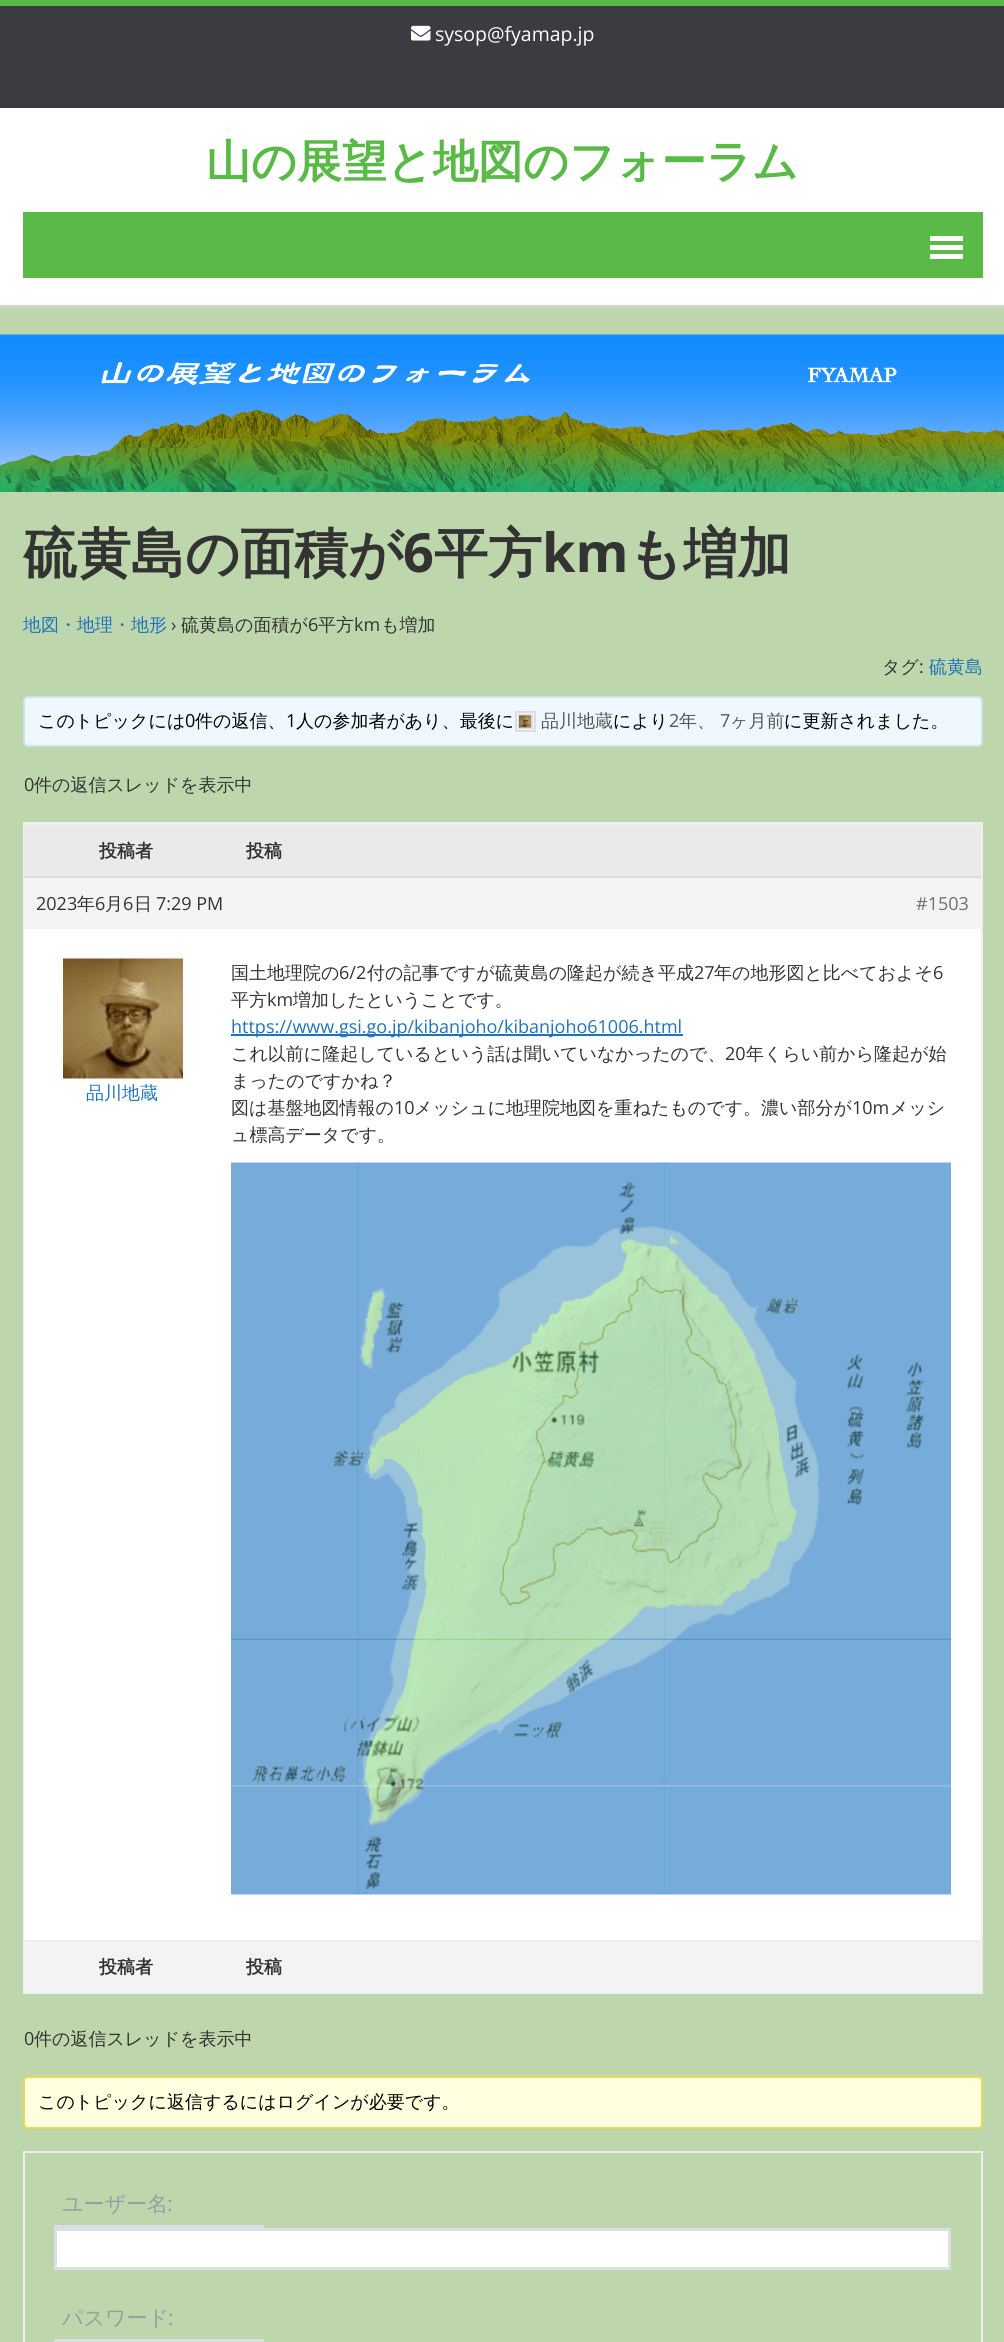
#include <cairo/cairo.h>
#include <math.h>
#include <stddef.h>

typedef struct { double x, y; const char *s; } line_t;
typedef struct { double x, y, w, h; unsigned color; } box_t;
static cairo_t *cr;

static void rgb(unsigned color)
{
	cairo_set_source_rgb(cr, (color >> 16) / 255.0, (color >> 8 & 255) / 255.0, (color & 255) / 255.0);
}

static void rrect(double x, double y, double w, double h, double r)
{
	cairo_new_sub_path(cr);
	cairo_arc(cr, x + w - r, y + h - r, r, 0, M_PI / 2);
	cairo_arc(cr, x + r, y + h - r, r, M_PI / 2, M_PI);
	cairo_arc(cr, x + r, y + r, r, M_PI, 1.5 * M_PI);
	cairo_arc(cr, x + w - r, y + r, r, 1.5 * M_PI, 2 * M_PI);
	cairo_close_path(cr);
}

static void soft_shadow(double x, double y, double w, double h, double r, double blur, double alpha)
{
	cairo_push_group_with_content(cr, CAIRO_CONTENT_ALPHA);
	cairo_set_operator(cr, CAIRO_OPERATOR_SOURCE);
	for (int i = 15; i >= -15 && fmin(w, h) + blur * i / 3 > 0; i -= 2) {
		double e = blur * i / 6;
		cairo_set_source_rgba(cr, 0, 0, 0, alpha * erfc((i - 1) / 8.5) / 2);
		rrect(x - e, y - e, w + 2 * e, h + 2 * e, fmax(0, fmin(r + e + blur * .6, fmin(w, h) / 2 + e)));
		cairo_fill(cr);
	}
	cairo_pattern_t *soft = cairo_pop_group(cr);
	cairo_mask(cr, soft);
	cairo_pattern_destroy(soft);
}

static void image(const char *path, double x, double y, double w, double h)
{
	cairo_surface_t *image = cairo_image_surface_create_from_png(path);
	cairo_save(cr);
	cairo_set_source_surface(cr, image, x, y);
	cairo_rectangle(cr, x, y, w, h);
	cairo_fill(cr);
	cairo_restore(cr);
	cairo_surface_destroy(image);
}

int main(void) {
	cairo_surface_t *surface = cairo_image_surface_create(CAIRO_FORMAT_RGB24, 1004, 2342);
	cr = cairo_create(surface);
	cairo_font_options_t *options = cairo_font_options_create();
	cairo_font_options_set_hint_metrics(options, CAIRO_HINT_METRICS_OFF);
	cairo_font_options_set_hint_style(options, CAIRO_HINT_STYLE_NONE);
	cairo_set_font_options(cr, options);
	cairo_set_miter_limit(cr, 4);
	rgb(0xbdd6ab);
	cairo_paint(cr);
	rgb(0xdddddd);
	soft_shadow(2, 2, 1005, 304, 0, 3, 1);
	rgb(0x3a3c41);
	cairo_rectangle(cr, 0, 6, 1004, 102);
	cairo_fill(cr);
	rgb(0x59ba47);
	cairo_rectangle(cr, 0, 0, 1004, 6);
	cairo_fill(cr);
	image("img/1.png", 411, 25, 20, 16);
	{
		static const box_t items[] = {
			{0, 108, 1004, 197, 0xffffff},
			{23, 212, 960, 66, 0x59ba47},
			{930, 236, 33, 5, 0xffffff},
			{930, 245, 33, 5, 0xffffff},
			{930, 254, 33, 5, 0xffffff},
		};
		for (size_t i = 0; i < sizeof items / sizeof *items; i++) {
			rgb(items[i].color);
			cairo_rectangle(cr, items[i].x, items[i].y, items[i].w, items[i].h);
			cairo_fill(cr);
		}
	}
	image("img/2.png", 0, 334, 1004, 158);
	rgb(0xf0f8ff);
	rrect(24, 697, 958, 49, 4);
	cairo_fill_preserve(cr);
	rgb(0xcee1ef);
	cairo_stroke(cr);
	cairo_rectangle(cr, 516, 712, 19, 19);
	rgb(0xdddddd);
	cairo_stroke(cr);
	cairo_rectangle(cr, 519, 715, 13, 13);
	cairo_stroke(cr);
	image("img/3.png", 519, 715, 12, 13);
	cairo_rectangle(cr, 24, 823, 958, 1170);
	rgb(0xeeeeee);
	cairo_stroke(cr);
	{
		static const box_t items[] = {
			{24, 826, 957, 50, 0xeaeaea},
			{24, 824, 957, 2, 0xeeeeee},
			{24, 878, 957, 51, 0xf4f4f4},
			{24, 876, 957, 2, 0xdddddd},
			{24, 929, 957, 1011, 0xffffff},
		};
		for (size_t i = 0; i < sizeof items / sizeof *items; i++) {
			rgb(items[i].color);
			cairo_rectangle(cr, items[i].x, items[i].y, items[i].w, items[i].h);
			cairo_fill(cr);
		}
	}
	image("img/4.png", 63, 958, 120, 121);
	rgb(0x1e73be);
	cairo_rectangle(cr, 231, 1034, 452, 2);
	cairo_fill(cr);
	image("img/5.png", 231, 1162, 720, 733);
	rgb(0xf3f3f3);
	cairo_rectangle(cr, 24, 1942, 957, 50);
	cairo_fill(cr);
	rgb(0xeeeeee);
	cairo_rectangle(cr, 24, 1940, 957, 2);
	cairo_fill(cr);
	rgb(0xffffe0);
	rrect(24, 2077, 958, 51, 4);
	cairo_fill_preserve(cr);
	rgb(0xe6db55);
	cairo_stroke(cr);
	cairo_rectangle(cr, 24, 2152, 958, 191);
	rgb(0xeeeeee);
	cairo_stroke(cr);
	rgb(0xdcdee4);
	cairo_rectangle(cr, 54, 2225, 210, 3);
	cairo_fill(cr);
	rgb(0xffffff);
	cairo_rectangle(cr, 55.5, 2229.5, 894, 39);
	cairo_fill_preserve(cr);
	rgb(0xdcdee4);
	cairo_set_line_width(cr, 3);
	cairo_stroke(cr);
	cairo_rectangle(cr, 54, 2339, 210, 3);
	cairo_fill(cr);
	cairo_select_font_face(cr, "Open Sans", CAIRO_FONT_SLANT_NORMAL, CAIRO_FONT_WEIGHT_NORMAL);
	cairo_set_font_size(cr, 19.5);
	rgb(0xffffff);
	cairo_move_to(cr, 435, 41);
	cairo_show_text(cr, "sysop@fyamap.jp");
	cairo_select_font_face(cr, "WenQuanYi Zen Hei", CAIRO_FONT_SLANT_NORMAL, CAIRO_FONT_WEIGHT_BOLD);
	cairo_set_font_size(cr, 45);
	rgb(0x59ba47);
	cairo_move_to(cr, 206, 177);
	cairo_show_text(cr, "山の展望と地図のフォーラム");
	cairo_set_font_size(cr, 54);
	rgb(0x333333);
	cairo_move_to(cr, 23, 572);
	cairo_show_text(cr, "硫黄島の面積が");
	cairo_select_font_face(cr, "Open Sans", CAIRO_FONT_SLANT_NORMAL, CAIRO_FONT_WEIGHT_BOLD);
	cairo_move_to(cr, 403, 572);
	cairo_show_text(cr, "6");
	cairo_select_font_face(cr, "WenQuanYi Zen Hei", CAIRO_FONT_SLANT_NORMAL, CAIRO_FONT_WEIGHT_BOLD);
	cairo_move_to(cr, 434, 572);
	cairo_show_text(cr, "平方");
	cairo_select_font_face(cr, "Open Sans", CAIRO_FONT_SLANT_NORMAL, CAIRO_FONT_WEIGHT_BOLD);
	cairo_move_to(cr, 542, 572);
	cairo_show_text(cr, "km");
	cairo_select_font_face(cr, "WenQuanYi Zen Hei", CAIRO_FONT_SLANT_NORMAL, CAIRO_FONT_WEIGHT_BOLD);
	cairo_move_to(cr, 628, 572);
	cairo_show_text(cr, "も増加");
	cairo_select_font_face(cr, "WenQuanYi Zen Hei Medium", CAIRO_FONT_SLANT_NORMAL, CAIRO_FONT_WEIGHT_NORMAL);
	cairo_set_font_size(cr, 18);
	rgb(0x1e73be);
	cairo_move_to(cr, 23, 631);
	cairo_show_text(cr, "地図・地理・地形");
	cairo_select_font_face(cr, "Open Sans", CAIRO_FONT_SLANT_NORMAL, CAIRO_FONT_WEIGHT_NORMAL);
	rgb(0x333333);
	cairo_move_to(cr, 171, 631);
	cairo_show_text(cr, "›");
	cairo_select_font_face(cr, "WenQuanYi Zen Hei Medium", CAIRO_FONT_SLANT_NORMAL, CAIRO_FONT_WEIGHT_NORMAL);
	cairo_move_to(cr, 181, 631);
	cairo_show_text(cr, "硫黄島の面積が");
	cairo_select_font_face(cr, "Open Sans", CAIRO_FONT_SLANT_NORMAL, CAIRO_FONT_WEIGHT_NORMAL);
	cairo_move_to(cr, 308, 631);
	cairo_show_text(cr, "6");
	cairo_select_font_face(cr, "WenQuanYi Zen Hei Medium", CAIRO_FONT_SLANT_NORMAL, CAIRO_FONT_WEIGHT_NORMAL);
	cairo_move_to(cr, 318, 631);
	cairo_show_text(cr, "平方");
	cairo_select_font_face(cr, "Open Sans", CAIRO_FONT_SLANT_NORMAL, CAIRO_FONT_WEIGHT_NORMAL);
	cairo_move_to(cr, 354, 631);
	cairo_show_text(cr, "km");
	cairo_select_font_face(cr, "WenQuanYi Zen Hei Medium", CAIRO_FONT_SLANT_NORMAL, CAIRO_FONT_WEIGHT_NORMAL);
	cairo_move_to(cr, 381, 631);
	cairo_show_text(cr, "も増加");
	cairo_move_to(cr, 882, 673);
	cairo_show_text(cr, "タグ");
	cairo_select_font_face(cr, "Open Sans", CAIRO_FONT_SLANT_NORMAL, CAIRO_FONT_WEIGHT_NORMAL);
	cairo_move_to(cr, 919, 673);
	cairo_show_text(cr, ":");
	cairo_select_font_face(cr, "WenQuanYi Zen Hei Medium", CAIRO_FONT_SLANT_NORMAL, CAIRO_FONT_WEIGHT_NORMAL);
	rgb(0x1e73be);
	cairo_move_to(cr, 929, 673);
	cairo_show_text(cr, "硫黄島");
	rgb(0x000000);
	cairo_move_to(cr, 38, 727);
	cairo_show_text(cr, "このトピックには");
	cairo_select_font_face(cr, "Open Sans", CAIRO_FONT_SLANT_NORMAL, CAIRO_FONT_WEIGHT_NORMAL);
	cairo_move_to(cr, 185, 727);
	cairo_show_text(cr, "0");
	cairo_select_font_face(cr, "WenQuanYi Zen Hei Medium", CAIRO_FONT_SLANT_NORMAL, CAIRO_FONT_WEIGHT_NORMAL);
	cairo_move_to(cr, 195, 727);
	cairo_show_text(cr, "件の返信、");
	cairo_select_font_face(cr, "Open Sans", CAIRO_FONT_SLANT_NORMAL, CAIRO_FONT_WEIGHT_NORMAL);
	cairo_move_to(cr, 286, 727);
	cairo_show_text(cr, "1");
	cairo_select_font_face(cr, "WenQuanYi Zen Hei Medium", CAIRO_FONT_SLANT_NORMAL, CAIRO_FONT_WEIGHT_NORMAL);
	cairo_move_to(cr, 296, 727);
	cairo_show_text(cr, "人の参加者があり、最後に");
	rgb(0x555555);
	cairo_move_to(cr, 541, 727);
	cairo_show_text(cr, "品川地蔵");
	rgb(0x000000);
	cairo_move_to(cr, 613, 727);
	cairo_show_text(cr, "により");
	cairo_select_font_face(cr, "Open Sans", CAIRO_FONT_SLANT_NORMAL, CAIRO_FONT_WEIGHT_NORMAL);
	rgb(0x555555);
	cairo_move_to(cr, 669, 727);
	cairo_show_text(cr, "2");
	cairo_select_font_face(cr, "WenQuanYi Zen Hei Medium", CAIRO_FONT_SLANT_NORMAL, CAIRO_FONT_WEIGHT_NORMAL);
	cairo_move_to(cr, 679, 727);
	cairo_show_text(cr, "年、");
	cairo_select_font_face(cr, "Open Sans", CAIRO_FONT_SLANT_NORMAL, CAIRO_FONT_WEIGHT_NORMAL);
	cairo_move_to(cr, 720, 727);
	cairo_show_text(cr, "7");
	cairo_select_font_face(cr, "WenQuanYi Zen Hei Medium", CAIRO_FONT_SLANT_NORMAL, CAIRO_FONT_WEIGHT_NORMAL);
	cairo_move_to(cr, 730, 727);
	cairo_show_text(cr, "ヶ月前");
	rgb(0x000000);
	cairo_move_to(cr, 784, 727);
	cairo_show_text(cr, "に更新されました。");
	cairo_select_font_face(cr, "Open Sans", CAIRO_FONT_SLANT_NORMAL, CAIRO_FONT_WEIGHT_NORMAL);
	rgb(0x333333);
	cairo_move_to(cr, 24, 791);
	cairo_show_text(cr, "0");
	cairo_select_font_face(cr, "WenQuanYi Zen Hei Medium", CAIRO_FONT_SLANT_NORMAL, CAIRO_FONT_WEIGHT_NORMAL);
	cairo_move_to(cr, 34, 791);
	cairo_show_text(cr, "件の返信スレッドを表示中");
	cairo_select_font_face(cr, "WenQuanYi Zen Hei", CAIRO_FONT_SLANT_NORMAL, CAIRO_FONT_WEIGHT_BOLD);
	cairo_move_to(cr, 99, 857);
	cairo_show_text(cr, "投稿者");
	cairo_move_to(cr, 246, 857);
	cairo_show_text(cr, "投稿");
	cairo_select_font_face(cr, "Open Sans", CAIRO_FONT_SLANT_NORMAL, CAIRO_FONT_WEIGHT_NORMAL);
	cairo_move_to(cr, 36, 910);
	cairo_show_text(cr, "2023");
	cairo_select_font_face(cr, "WenQuanYi Zen Hei Medium", CAIRO_FONT_SLANT_NORMAL, CAIRO_FONT_WEIGHT_NORMAL);
	cairo_move_to(cr, 77, 910);
	cairo_show_text(cr, "年");
	cairo_select_font_face(cr, "Open Sans", CAIRO_FONT_SLANT_NORMAL, CAIRO_FONT_WEIGHT_NORMAL);
	cairo_move_to(cr, 95, 910);
	cairo_show_text(cr, "6");
	cairo_select_font_face(cr, "WenQuanYi Zen Hei Medium", CAIRO_FONT_SLANT_NORMAL, CAIRO_FONT_WEIGHT_NORMAL);
	cairo_move_to(cr, 105, 910);
	cairo_show_text(cr, "月");
	cairo_select_font_face(cr, "Open Sans", CAIRO_FONT_SLANT_NORMAL, CAIRO_FONT_WEIGHT_NORMAL);
	cairo_move_to(cr, 123, 910);
	cairo_show_text(cr, "6");
	cairo_select_font_face(cr, "WenQuanYi Zen Hei Medium", CAIRO_FONT_SLANT_NORMAL, CAIRO_FONT_WEIGHT_NORMAL);
	cairo_move_to(cr, 134, 910);
	cairo_show_text(cr, "日");
	cairo_select_font_face(cr, "Open Sans", CAIRO_FONT_SLANT_NORMAL, CAIRO_FONT_WEIGHT_NORMAL);
	cairo_move_to(cr, 156, 910);
	cairo_show_text(cr, "7:29 PM");
	rgb(0x707070);
	cairo_move_to(cr, 916, 910);
	cairo_show_text(cr, "#1503");
	cairo_select_font_face(cr, "WenQuanYi Zen Hei Medium", CAIRO_FONT_SLANT_NORMAL, CAIRO_FONT_WEIGHT_NORMAL);
	rgb(0x1e73be);
	cairo_move_to(cr, 86, 1099);
	cairo_show_text(cr, "品川地蔵");
	rgb(0x333333);
	cairo_move_to(cr, 231, 979);
	cairo_show_text(cr, "国土地理院の");
	cairo_select_font_face(cr, "Open Sans", CAIRO_FONT_SLANT_NORMAL, CAIRO_FONT_WEIGHT_NORMAL);
	cairo_move_to(cr, 339, 979);
	cairo_show_text(cr, "6/2");
	cairo_select_font_face(cr, "WenQuanYi Zen Hei Medium", CAIRO_FONT_SLANT_NORMAL, CAIRO_FONT_WEIGHT_NORMAL);
	cairo_move_to(cr, 367, 979);
	cairo_show_text(cr, "付の記事ですが硫黄島の隆起が続き平成");
	cairo_select_font_face(cr, "Open Sans", CAIRO_FONT_SLANT_NORMAL, CAIRO_FONT_WEIGHT_NORMAL);
	cairo_move_to(cr, 694, 979);
	cairo_show_text(cr, "27");
	cairo_select_font_face(cr, "WenQuanYi Zen Hei Medium", CAIRO_FONT_SLANT_NORMAL, CAIRO_FONT_WEIGHT_NORMAL);
	cairo_move_to(cr, 714, 979);
	cairo_show_text(cr, "年の地形図と比べておよそ");
	cairo_select_font_face(cr, "Open Sans", CAIRO_FONT_SLANT_NORMAL, CAIRO_FONT_WEIGHT_NORMAL);
	cairo_move_to(cr, 933, 979);
	cairo_show_text(cr, "6");
	cairo_select_font_face(cr, "WenQuanYi Zen Hei Medium", CAIRO_FONT_SLANT_NORMAL, CAIRO_FONT_WEIGHT_NORMAL);
	cairo_move_to(cr, 231, 1006);
	cairo_show_text(cr, "平方");
	cairo_select_font_face(cr, "Open Sans", CAIRO_FONT_SLANT_NORMAL, CAIRO_FONT_WEIGHT_NORMAL);
	cairo_move_to(cr, 267, 1006);
	cairo_show_text(cr, "km");
	cairo_select_font_face(cr, "WenQuanYi Zen Hei Medium", CAIRO_FONT_SLANT_NORMAL, CAIRO_FONT_WEIGHT_NORMAL);
	cairo_move_to(cr, 293, 1006);
	cairo_show_text(cr, "増加したということです。");
	cairo_select_font_face(cr, "Open Sans", CAIRO_FONT_SLANT_NORMAL, CAIRO_FONT_WEIGHT_NORMAL);
	rgb(0x1e73be);
	cairo_move_to(cr, 231, 1033);
	cairo_show_text(cr, "https://www.gsi.go.jp/kibanjoho/kibanjoho61006.html");
	cairo_select_font_face(cr, "WenQuanYi Zen Hei Medium", CAIRO_FONT_SLANT_NORMAL, CAIRO_FONT_WEIGHT_NORMAL);
	rgb(0x333333);
	cairo_move_to(cr, 231, 1060);
	cairo_show_text(cr, "これ以前に隆起しているという話は聞いていなかったので、");
	cairo_select_font_face(cr, "Open Sans", CAIRO_FONT_SLANT_NORMAL, CAIRO_FONT_WEIGHT_NORMAL);
	cairo_move_to(cr, 725, 1060);
	cairo_show_text(cr, "20");
	cairo_select_font_face(cr, "WenQuanYi Zen Hei Medium", CAIRO_FONT_SLANT_NORMAL, CAIRO_FONT_WEIGHT_NORMAL);
	{
		static const line_t items[] = {
			{746, 1060, "年くらい前から隆起が始"},
			{231, 1087, "まったのですかね？"},
			{231, 1114, "図は基盤地図情報の"},
		};
		for (size_t i = 0; i < sizeof items / sizeof *items; i++) {
			cairo_move_to(cr, items[i].x, items[i].y);
			cairo_show_text(cr, items[i].s);
		}
	}
	cairo_select_font_face(cr, "Open Sans", CAIRO_FONT_SLANT_NORMAL, CAIRO_FONT_WEIGHT_NORMAL);
	cairo_move_to(cr, 394, 1114);
	cairo_show_text(cr, "10");
	cairo_select_font_face(cr, "WenQuanYi Zen Hei Medium", CAIRO_FONT_SLANT_NORMAL, CAIRO_FONT_WEIGHT_NORMAL);
	cairo_move_to(cr, 414, 1114);
	cairo_show_text(cr, "メッシュに地理院地図を重ねたものです。濃い部分が");
	cairo_select_font_face(cr, "Open Sans", CAIRO_FONT_SLANT_NORMAL, CAIRO_FONT_WEIGHT_NORMAL);
	cairo_move_to(cr, 852, 1114);
	cairo_show_text(cr, "10m");
	cairo_select_font_face(cr, "WenQuanYi Zen Hei Medium", CAIRO_FONT_SLANT_NORMAL, CAIRO_FONT_WEIGHT_NORMAL);
	cairo_move_to(cr, 890, 1114);
	cairo_show_text(cr, "メッシ");
	cairo_move_to(cr, 231, 1141);
	cairo_show_text(cr, "ュ標高データです。");
	cairo_select_font_face(cr, "WenQuanYi Zen Hei", CAIRO_FONT_SLANT_NORMAL, CAIRO_FONT_WEIGHT_BOLD);
	cairo_move_to(cr, 99, 1973);
	cairo_show_text(cr, "投稿者");
	cairo_move_to(cr, 246, 1973);
	cairo_show_text(cr, "投稿");
	cairo_select_font_face(cr, "Open Sans", CAIRO_FONT_SLANT_NORMAL, CAIRO_FONT_WEIGHT_NORMAL);
	cairo_move_to(cr, 24, 2045);
	cairo_show_text(cr, "0");
	cairo_select_font_face(cr, "WenQuanYi Zen Hei Medium", CAIRO_FONT_SLANT_NORMAL, CAIRO_FONT_WEIGHT_NORMAL);
	cairo_move_to(cr, 34, 2045);
	cairo_show_text(cr, "件の返信スレッドを表示中");
	rgb(0x000000);
	cairo_move_to(cr, 38, 2108);
	cairo_show_text(cr, "このトピックに返信するにはログインが必要です。");
	cairo_set_font_size(cr, 21);
	rgb(0x999ca5);
	cairo_move_to(cr, 62, 2211);
	cairo_show_text(cr, "ユーザー名");
	cairo_select_font_face(cr, "Open Sans", CAIRO_FONT_SLANT_NORMAL, CAIRO_FONT_WEIGHT_NORMAL);
	cairo_move_to(cr, 167, 2211);
	cairo_show_text(cr, ":");
	cairo_select_font_face(cr, "WenQuanYi Zen Hei Medium", CAIRO_FONT_SLANT_NORMAL, CAIRO_FONT_WEIGHT_NORMAL);
	cairo_move_to(cr, 62, 2325);
	cairo_show_text(cr, "パスワード");
	cairo_select_font_face(cr, "Open Sans", CAIRO_FONT_SLANT_NORMAL, CAIRO_FONT_WEIGHT_NORMAL);
	cairo_move_to(cr, 168, 2325);
	cairo_show_text(cr, ":");
	cairo_surface_write_to_png(surface, "page.png");
	cairo_font_options_destroy(options);
	cairo_destroy(cr);
	cairo_surface_destroy(surface);
	return 0;
}
